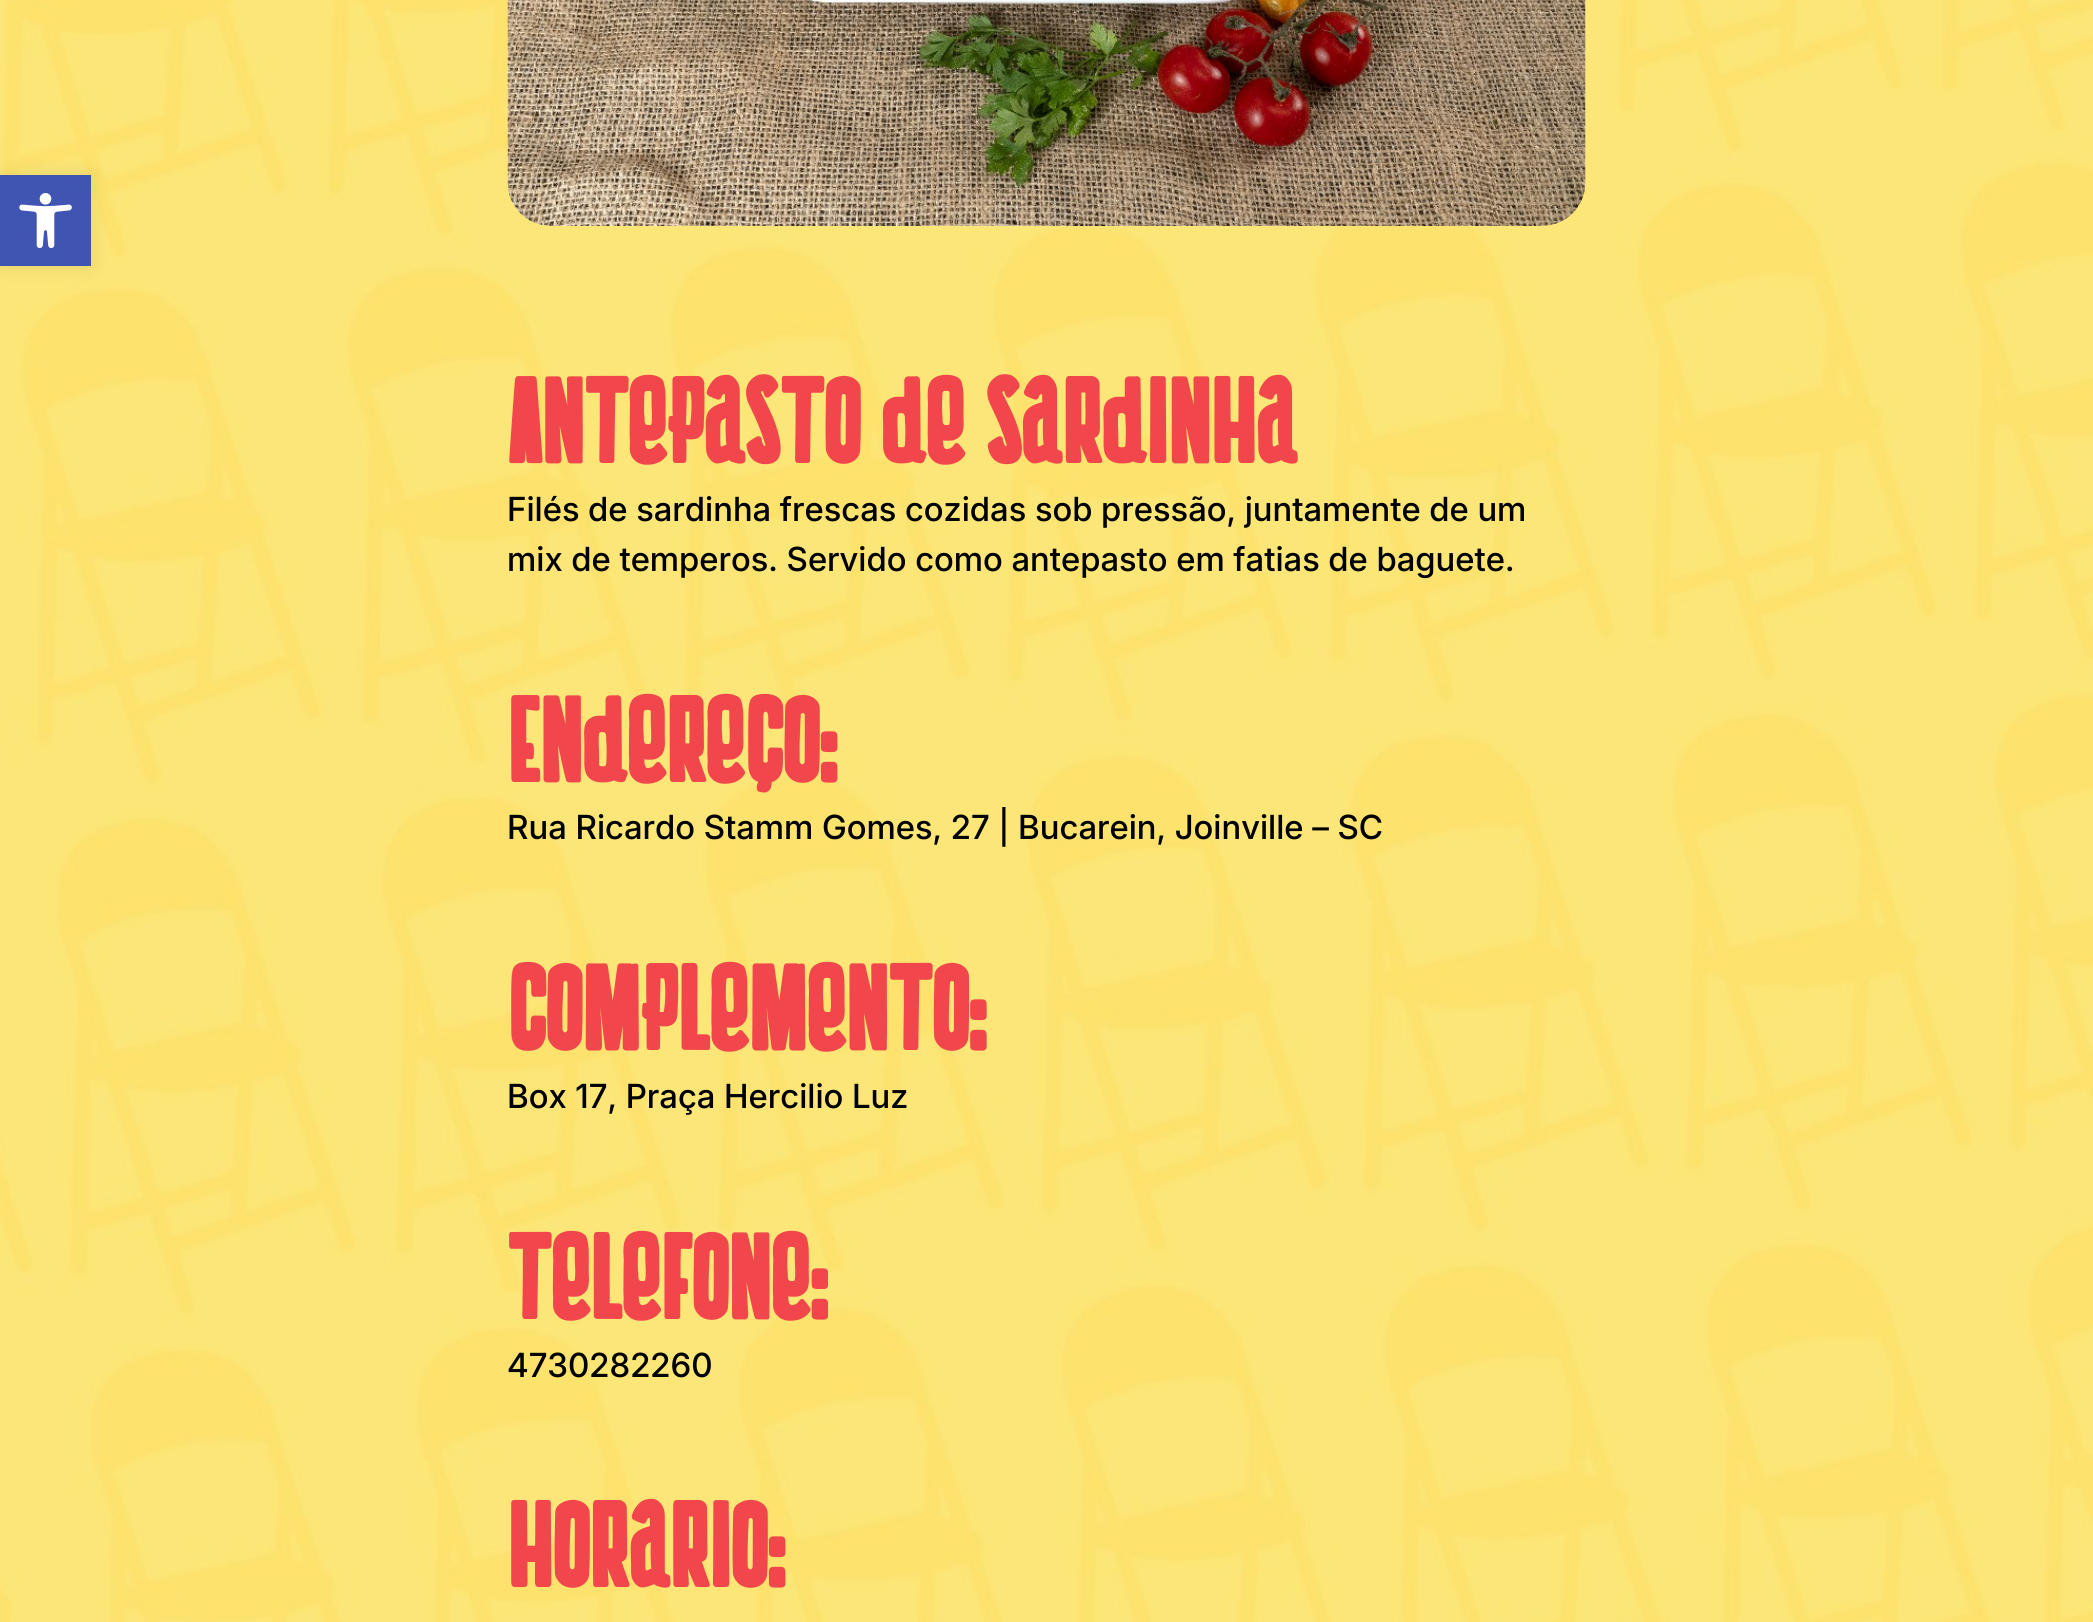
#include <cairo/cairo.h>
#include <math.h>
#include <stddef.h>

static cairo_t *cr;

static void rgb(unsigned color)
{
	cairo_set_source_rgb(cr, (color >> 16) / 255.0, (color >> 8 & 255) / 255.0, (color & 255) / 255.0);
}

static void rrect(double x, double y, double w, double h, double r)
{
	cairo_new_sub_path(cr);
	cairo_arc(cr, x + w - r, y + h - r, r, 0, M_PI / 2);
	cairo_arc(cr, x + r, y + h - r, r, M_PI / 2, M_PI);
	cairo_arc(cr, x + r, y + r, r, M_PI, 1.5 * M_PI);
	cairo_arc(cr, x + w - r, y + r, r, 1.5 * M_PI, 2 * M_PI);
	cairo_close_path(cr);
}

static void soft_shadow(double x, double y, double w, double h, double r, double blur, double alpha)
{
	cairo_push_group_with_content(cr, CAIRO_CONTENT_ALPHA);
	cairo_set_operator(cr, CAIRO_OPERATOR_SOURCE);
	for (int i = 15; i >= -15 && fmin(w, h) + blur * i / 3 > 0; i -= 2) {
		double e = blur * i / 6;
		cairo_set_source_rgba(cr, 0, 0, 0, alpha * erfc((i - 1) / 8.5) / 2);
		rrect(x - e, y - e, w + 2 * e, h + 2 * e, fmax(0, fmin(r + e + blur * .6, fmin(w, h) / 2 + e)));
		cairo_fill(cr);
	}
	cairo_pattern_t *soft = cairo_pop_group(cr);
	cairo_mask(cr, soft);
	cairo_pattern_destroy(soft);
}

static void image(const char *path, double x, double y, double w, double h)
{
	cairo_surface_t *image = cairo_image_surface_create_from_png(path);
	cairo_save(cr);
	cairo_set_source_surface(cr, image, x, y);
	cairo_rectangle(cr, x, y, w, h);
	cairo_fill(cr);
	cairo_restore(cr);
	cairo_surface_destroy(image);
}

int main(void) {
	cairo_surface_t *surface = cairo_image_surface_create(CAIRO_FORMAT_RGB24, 2093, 1622);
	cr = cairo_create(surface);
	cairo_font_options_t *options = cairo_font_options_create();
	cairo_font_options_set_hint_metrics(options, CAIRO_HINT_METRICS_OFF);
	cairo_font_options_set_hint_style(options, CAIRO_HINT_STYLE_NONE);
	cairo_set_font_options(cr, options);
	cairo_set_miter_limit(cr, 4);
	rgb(0xffffff);
	cairo_paint(cr);
	image("img/2.png", 0, 0, 2093, 1622);
	rgb(0x000000);
	soft_shadow(0, 175, 91, 91, 0, 9, 0.1);
	rgb(0x4054b2);
	cairo_rectangle(cr, 0, 175, 91, 91);
	cairo_fill(cr);
	image("img/1.png", 19, 193, 53, 56);
	image("img/3.png", 507, 0, 1079, 226);
	cairo_select_font_face(cr, "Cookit", CAIRO_FONT_SLANT_NORMAL, CAIRO_FONT_WEIGHT_BOLD);
	cairo_set_font_size(cr, 105);
	rgb(0xf2464d);
	cairo_move_to(cr, 507, 463);
	cairo_show_text(cr, "Antepasto de sardinha");
	cairo_select_font_face(cr, "Inter Medium", CAIRO_FONT_SLANT_NORMAL, CAIRO_FONT_WEIGHT_NORMAL);
	cairo_set_font_size(cr, 33.25);
	rgb(0x000000);
	cairo_move_to(cr, 507, 521);
	cairo_show_text(cr, "Filés de sardinha frescas cozidas sob pressão, juntamente de um");
	cairo_move_to(cr, 507, 571);
	cairo_show_text(cr, "mix de temperos. Servido como antepasto em fatias de baguete.");
	cairo_select_font_face(cr, "Cookit", CAIRO_FONT_SLANT_NORMAL, CAIRO_FONT_WEIGHT_BOLD);
	cairo_set_font_size(cr, 105);
	rgb(0xf2464d);
	cairo_move_to(cr, 507, 782);
	cairo_show_text(cr, "Endereço:");
	cairo_select_font_face(cr, "Inter Medium", CAIRO_FONT_SLANT_NORMAL, CAIRO_FONT_WEIGHT_NORMAL);
	cairo_set_font_size(cr, 33.25);
	rgb(0x000000);
	cairo_move_to(cr, 507, 839);
	cairo_show_text(cr, "Rua Ricardo Stamm Gomes, 27 | Bucarein, Joinville – SC");
	cairo_select_font_face(cr, "Cookit", CAIRO_FONT_SLANT_NORMAL, CAIRO_FONT_WEIGHT_BOLD);
	cairo_set_font_size(cr, 105);
	rgb(0xf2464d);
	cairo_move_to(cr, 507, 1050);
	cairo_show_text(cr, "Complemento:");
	cairo_select_font_face(cr, "Inter Medium", CAIRO_FONT_SLANT_NORMAL, CAIRO_FONT_WEIGHT_NORMAL);
	cairo_set_font_size(cr, 33.25);
	rgb(0x000000);
	cairo_move_to(cr, 507, 1108);
	cairo_show_text(cr, "Box 17, Praça Hercilio Luz");
	cairo_select_font_face(cr, "Cookit", CAIRO_FONT_SLANT_NORMAL, CAIRO_FONT_WEIGHT_BOLD);
	cairo_set_font_size(cr, 105);
	rgb(0xf2464d);
	cairo_move_to(cr, 507, 1319);
	cairo_show_text(cr, "Telefone:");
	cairo_select_font_face(cr, "Inter Medium", CAIRO_FONT_SLANT_NORMAL, CAIRO_FONT_WEIGHT_NORMAL);
	cairo_set_font_size(cr, 33.25);
	rgb(0x000000);
	cairo_move_to(cr, 507, 1377);
	cairo_show_text(cr, "4730282260");
	cairo_select_font_face(cr, "Cookit", CAIRO_FONT_SLANT_NORMAL, CAIRO_FONT_WEIGHT_BOLD);
	cairo_set_font_size(cr, 105);
	rgb(0xf2464d);
	cairo_move_to(cr, 507, 1587);
	cairo_show_text(cr, "Horario:");
	cairo_surface_write_to_png(surface, "page.png");
	cairo_font_options_destroy(options);
	cairo_destroy(cr);
	cairo_surface_destroy(surface);
	return 0;
}
